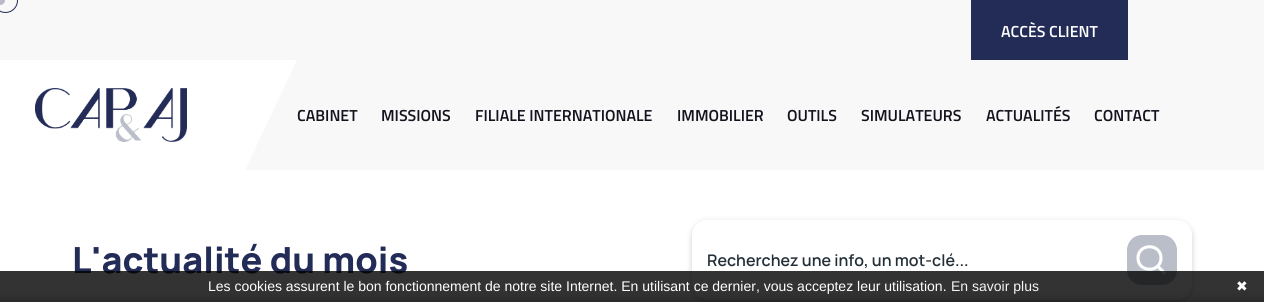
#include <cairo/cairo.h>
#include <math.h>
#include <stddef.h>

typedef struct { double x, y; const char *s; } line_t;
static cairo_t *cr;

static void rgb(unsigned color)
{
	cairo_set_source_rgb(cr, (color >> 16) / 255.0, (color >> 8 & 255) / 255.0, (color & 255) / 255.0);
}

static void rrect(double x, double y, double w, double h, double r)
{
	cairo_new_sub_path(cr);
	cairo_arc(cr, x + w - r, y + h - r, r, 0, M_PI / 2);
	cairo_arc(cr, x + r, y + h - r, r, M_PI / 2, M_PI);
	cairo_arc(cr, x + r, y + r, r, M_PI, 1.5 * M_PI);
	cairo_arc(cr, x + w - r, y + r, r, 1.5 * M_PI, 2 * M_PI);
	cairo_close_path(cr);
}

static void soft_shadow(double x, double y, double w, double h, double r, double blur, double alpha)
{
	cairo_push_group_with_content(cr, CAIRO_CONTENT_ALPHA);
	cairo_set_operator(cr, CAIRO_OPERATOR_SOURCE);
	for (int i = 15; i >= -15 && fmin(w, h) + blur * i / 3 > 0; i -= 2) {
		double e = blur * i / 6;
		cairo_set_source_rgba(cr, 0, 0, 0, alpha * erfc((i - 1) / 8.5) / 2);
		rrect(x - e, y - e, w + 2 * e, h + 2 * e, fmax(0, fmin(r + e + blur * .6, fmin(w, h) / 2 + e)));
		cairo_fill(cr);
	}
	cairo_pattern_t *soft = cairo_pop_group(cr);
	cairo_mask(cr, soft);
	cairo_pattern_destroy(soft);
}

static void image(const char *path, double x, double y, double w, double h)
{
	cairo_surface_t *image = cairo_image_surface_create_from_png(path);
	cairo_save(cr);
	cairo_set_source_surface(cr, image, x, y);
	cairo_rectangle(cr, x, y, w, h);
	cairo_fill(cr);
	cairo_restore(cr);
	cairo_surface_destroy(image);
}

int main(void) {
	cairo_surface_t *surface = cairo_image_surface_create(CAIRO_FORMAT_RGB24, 1264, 302);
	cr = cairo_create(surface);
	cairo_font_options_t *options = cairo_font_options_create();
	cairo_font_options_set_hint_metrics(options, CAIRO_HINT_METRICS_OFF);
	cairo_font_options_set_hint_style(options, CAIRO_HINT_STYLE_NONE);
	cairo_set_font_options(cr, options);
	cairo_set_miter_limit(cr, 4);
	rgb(0xffffff);
	cairo_paint(cr);
	rgb(0xf8f8f8);
	cairo_rectangle(cr, 0, 0, 1264, 170);
	cairo_fill(cr);
	cairo_arc(cr, 5.5, 0.5, 12, 0, 2 * M_PI);
	rgb(0x232b57);
	cairo_set_line_width(cr, 1);
	cairo_stroke(cr);
	rgb(0xb8bac8);
	cairo_arc(cr, 0, 0, 5, 0, 2 * M_PI);
	cairo_fill(cr);
	rgb(0x232b57);
	cairo_rectangle(cr, 971, 0, 157, 60);
	cairo_fill(cr);
	rgb(0xffffff);
	cairo_rectangle(cr, 0, 60, 35, 110);
	cairo_fill(cr);
	cairo_new_path(cr);
	cairo_move_to(cr, 35, 60);
	cairo_line_to(cr, 35, 187);
	cairo_line_to(cr, 237, 187);
	cairo_line_to(cr, 297, 60);
	cairo_close_path(cr);
	cairo_fill(cr);
	image("img/1.png", 35, 88, 152, 54);
	rgb(0x000000);
	soft_shadow(692, 222, 500, 80, 15, 3, 0.2);
	rgb(0xffffff);
	rrect(692, 220, 500, 80, 15);
	cairo_fill(cr);
	rgb(0xbabec8);
	rrect(1127, 235, 50, 50, 15);
	cairo_fill(cr);
	cairo_new_path(cr);
	cairo_move_to(cr, 1164.5, 273);
	cairo_line_to(cr, 1157.5, 266);
	cairo_move_to(cr, 1138, 258);
	cairo_curve_to(cr, 1138, 243, 1161, 243, 1161, 258);
	cairo_curve_to(cr, 1161, 273, 1138, 273, 1138, 258);
	cairo_close_path(cr);
	rgb(0xffffff);
	cairo_set_line_width(cr, 3.1);
	cairo_set_line_cap(cr, CAIRO_LINE_CAP_ROUND);
	cairo_set_line_join(cr, CAIRO_LINE_JOIN_ROUND);
	cairo_stroke(cr);
	rgb(0x000000);
	soft_shadow(0, 302, 1264, 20, 0, 6.5, 0.35);
	cairo_select_font_face(cr, "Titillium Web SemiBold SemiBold", CAIRO_FONT_SLANT_NORMAL, CAIRO_FONT_WEIGHT_NORMAL);
	cairo_set_font_size(cr, 16);
	rgb(0xffffff);
	cairo_move_to(cr, 1001, 37);
	cairo_show_text(cr, "ACCÈS CLIENT");
	rgb(0x13121d);
	{
		static const line_t items[] = {
			{297, 121, "CABINET"},
			{381, 121, "MISSIONS"},
			{475, 121, "FILIALE INTERNATIONALE"},
			{677, 121, "IMMOBILIER"},
			{787, 121, "OUTILS"},
			{861, 121, "SIMULATEURS"},
			{986, 121, "ACTUALITÉS"},
			{1094, 121, "CONTACT"},
		};
		for (size_t i = 0; i < sizeof items / sizeof *items; i++) {
			cairo_move_to(cr, items[i].x, items[i].y);
			cairo_show_text(cr, items[i].s);
		}
	}
	cairo_select_font_face(cr, "Manrope ExtraBold", CAIRO_FONT_SLANT_NORMAL, CAIRO_FONT_WEIGHT_NORMAL);
	cairo_set_font_size(cr, 36);
	rgb(0x232b57);
	cairo_move_to(cr, 72, 273);
	cairo_show_text(cr, "L'actualité du mois");
	cairo_select_font_face(cr, "Manrope SemiBold", CAIRO_FONT_SLANT_NORMAL, CAIRO_FONT_WEIGHT_NORMAL);
	cairo_set_font_size(cr, 16);
	rgb(0x232f38);
	cairo_move_to(cr, 707, 266);
	cairo_show_text(cr, "Recherchez une info, un mot-clé...");
	cairo_set_source_rgba(cr, 0, 0, 0, 0.8);
	cairo_rectangle(cr, 0, 271, 1264, 31);
	cairo_fill(cr);
	cairo_select_font_face(cr, "Liberation Sans", CAIRO_FONT_SLANT_NORMAL, CAIRO_FONT_WEIGHT_NORMAL);
	cairo_set_font_size(cr, 14);
	rgb(0xffffff);
	cairo_move_to(cr, 208, 291);
	cairo_show_text(cr, "Les cookies assurent le bon fonctionnement de notre site Internet. En utilisant ce dernier, vous acceptez leur utilisation.");
	rgb(0xf5f5f5);
	cairo_move_to(cr, 951, 291);
	cairo_show_text(cr, "En savoir plus");
	cairo_select_font_face(cr, "DejaVu Sans", CAIRO_FONT_SLANT_NORMAL, CAIRO_FONT_WEIGHT_NORMAL);
	rgb(0xffffff);
	cairo_move_to(cr, 1236, 291);
	cairo_show_text(cr, "✖");
	cairo_surface_write_to_png(surface, "page.png");
	cairo_font_options_destroy(options);
	cairo_destroy(cr);
	cairo_surface_destroy(surface);
	return 0;
}
